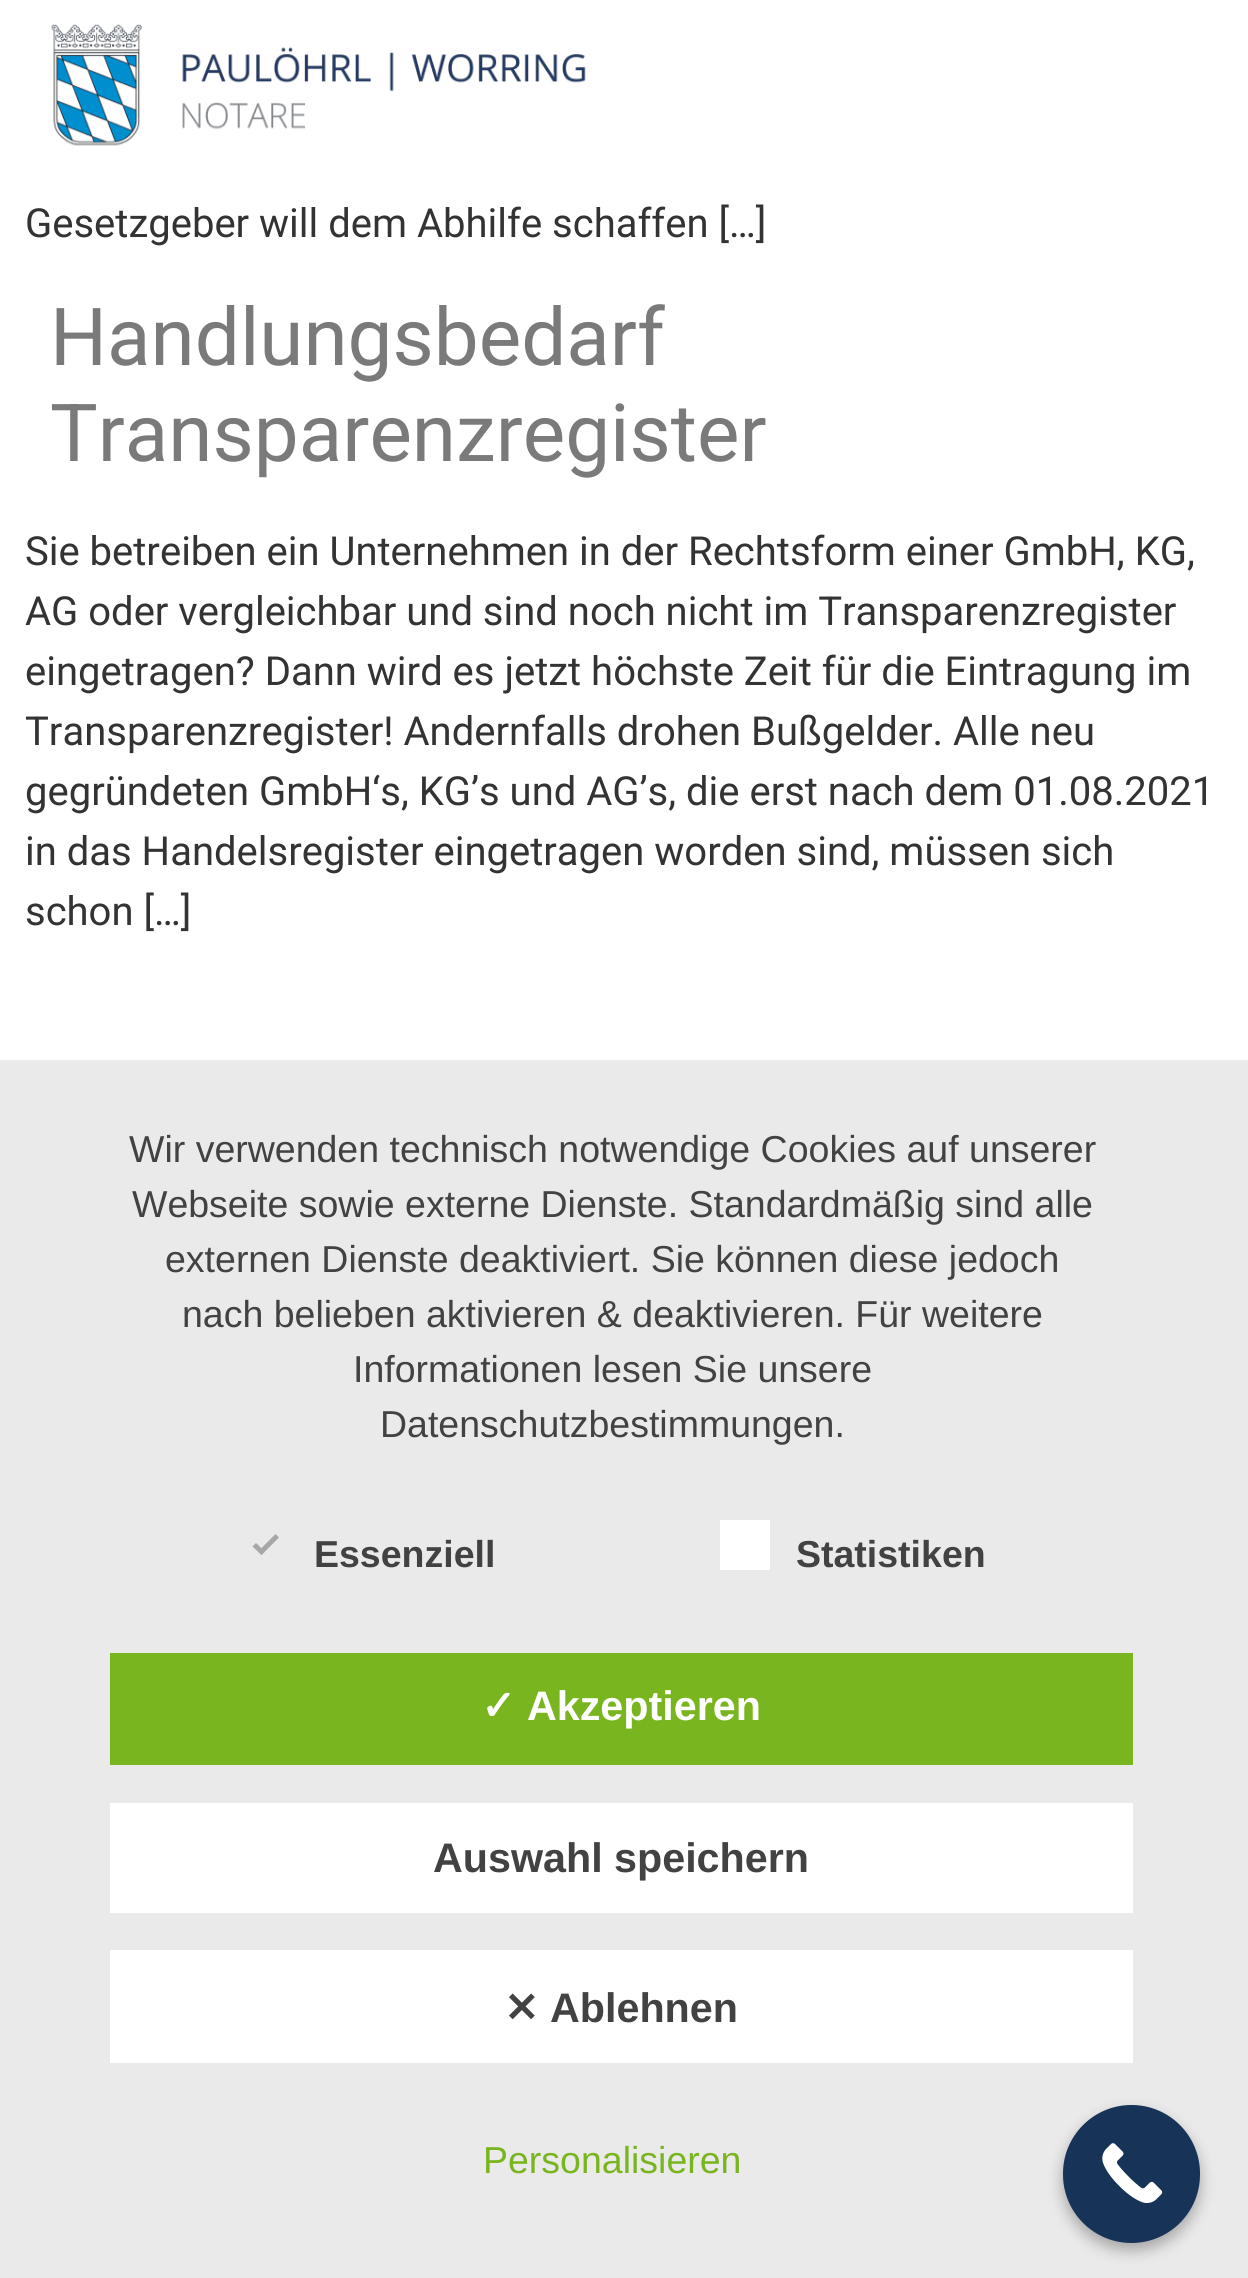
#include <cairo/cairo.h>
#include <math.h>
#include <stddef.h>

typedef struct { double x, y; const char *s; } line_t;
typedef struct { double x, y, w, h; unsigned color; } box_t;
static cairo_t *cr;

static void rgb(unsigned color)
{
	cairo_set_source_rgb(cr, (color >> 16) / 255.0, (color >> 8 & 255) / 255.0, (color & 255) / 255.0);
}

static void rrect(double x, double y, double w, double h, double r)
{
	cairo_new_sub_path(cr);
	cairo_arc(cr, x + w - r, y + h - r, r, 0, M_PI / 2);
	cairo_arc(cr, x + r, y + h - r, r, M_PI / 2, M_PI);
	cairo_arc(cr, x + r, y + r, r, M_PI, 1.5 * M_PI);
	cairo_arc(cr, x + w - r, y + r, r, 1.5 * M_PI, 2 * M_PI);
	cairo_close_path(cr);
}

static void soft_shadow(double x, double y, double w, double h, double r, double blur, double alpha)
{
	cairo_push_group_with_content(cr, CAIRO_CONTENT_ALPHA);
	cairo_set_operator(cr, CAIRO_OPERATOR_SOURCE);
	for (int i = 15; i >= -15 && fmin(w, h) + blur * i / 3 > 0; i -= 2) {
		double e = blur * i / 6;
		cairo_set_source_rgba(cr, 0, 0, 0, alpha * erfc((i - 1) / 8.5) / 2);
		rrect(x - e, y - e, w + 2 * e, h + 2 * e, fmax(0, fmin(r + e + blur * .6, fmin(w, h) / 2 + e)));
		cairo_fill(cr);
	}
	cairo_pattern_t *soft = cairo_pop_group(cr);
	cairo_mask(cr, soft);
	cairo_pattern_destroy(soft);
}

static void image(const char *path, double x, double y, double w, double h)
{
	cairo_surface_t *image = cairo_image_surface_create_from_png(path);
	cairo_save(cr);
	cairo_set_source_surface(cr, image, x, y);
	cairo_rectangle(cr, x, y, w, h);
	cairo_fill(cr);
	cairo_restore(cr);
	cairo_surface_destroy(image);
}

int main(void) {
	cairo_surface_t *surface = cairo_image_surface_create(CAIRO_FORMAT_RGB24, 1248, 2278);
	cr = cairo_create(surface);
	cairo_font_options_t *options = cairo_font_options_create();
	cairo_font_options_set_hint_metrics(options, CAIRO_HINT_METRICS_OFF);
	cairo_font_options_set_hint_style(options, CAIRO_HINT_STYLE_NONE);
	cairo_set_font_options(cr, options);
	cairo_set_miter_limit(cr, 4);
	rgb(0xffffff);
	cairo_paint(cr);
	image("img/1.png", 51, 24, 535, 122);
	rgb(0xeaeaea);
	cairo_rectangle(cr, 0, 1060, 1248, 1218);
	cairo_fill(cr);
	rgb(0xa7a7a7);
	cairo_new_path(cr);
	cairo_move_to(cr, 275.5, 1534);
	cairo_line_to(cr, 279, 1537.5);
	cairo_line_to(cr, 261.5, 1555);
	cairo_line_to(cr, 258, 1551.5);
	cairo_close_path(cr);
	cairo_fill(cr);
	cairo_new_path(cr);
	cairo_move_to(cr, 256, 1543);
	cairo_line_to(cr, 265, 1551.5);
	cairo_line_to(cr, 261.5, 1555);
	cairo_line_to(cr, 252.5, 1546.5);
	cairo_close_path(cr);
	cairo_fill(cr);
	{
		static const box_t items[] = {
			{720, 1520, 50, 50, 0xffffff},
			{110, 1653, 1023, 112, 0x79b51f},
			{110, 1803, 1023, 110, 0xffffff},
			{110, 1950, 1023, 113, 0xffffff},
		};
		for (size_t i = 0; i < sizeof items / sizeof *items; i++) {
			rgb(items[i].color);
			cairo_rectangle(cr, items[i].x, items[i].y, items[i].w, items[i].h);
			cairo_fill(cr);
		}
	}
	rgb(0x000000);
	soft_shadow(1063, 2113, 137, 137, 68.5, 7.5, 0.3);
	rgb(0x173357);
	rrect(1063, 2105, 137, 138, 68.5);
	cairo_fill(cr);
	image("img/2.png", 1102, 2143, 61, 60);
	cairo_select_font_face(cr, "Roboto", CAIRO_FONT_SLANT_NORMAL, CAIRO_FONT_WEIGHT_NORMAL);
	cairo_set_font_size(cr, 40);
	rgb(0x333333);
	cairo_move_to(cr, 25, 237);
	cairo_show_text(cr, "Gesetzgeber will dem Abhilfe schaffen […]");
	cairo_set_font_size(cr, 80);
	rgb(0x7a7a7a);
	cairo_move_to(cr, 50, 365);
	cairo_show_text(cr, "Handlungsbedarf");
	cairo_move_to(cr, 50, 461);
	cairo_show_text(cr, "Transparenzregister");
	cairo_set_font_size(cr, 40);
	rgb(0x333333);
	{
		static const line_t items[] = {
			{25, 565, "Sie betreiben ein Unternehmen in der Rechtsform einer GmbH, KG,"},
			{25, 625, "AG oder vergleichbar und sind noch nicht im Transparenzregister"},
			{25, 685, "eingetragen? Dann wird es jetzt höchste Zeit für die Eintragung im"},
			{25, 745, "Transparenzregister! Andernfalls drohen Bußgelder. Alle neu"},
			{25, 805, "gegründeten GmbH‘s, KG’s und AG’s, die erst nach dem 01.08.2021"},
			{25, 865, "in das Handelsregister eingetragen worden sind, müssen sich"},
			{25, 925, "schon […]"},
		};
		for (size_t i = 0; i < sizeof items / sizeof *items; i++) {
			cairo_move_to(cr, items[i].x, items[i].y);
			cairo_show_text(cr, items[i].s);
		}
	}
	cairo_select_font_face(cr, "Liberation Sans", CAIRO_FONT_SLANT_NORMAL, CAIRO_FONT_WEIGHT_NORMAL);
	cairo_set_font_size(cr, 37.5);
	rgb(0x424242);
	{
		static const line_t items[] = {
			{129, 1162, "Wir verwenden technisch notwendige Cookies auf unserer"},
			{132, 1217, "Webseite sowie externe Dienste. Standardmäßig sind alle"},
			{165, 1272, "externen Dienste deaktiviert. Sie können diese jedoch"},
			{182, 1327, "nach belieben aktivieren & deaktivieren. Für weitere"},
			{353, 1382, "Informationen lesen Sie unsere"},
			{380, 1437, "Datenschutzbestimmungen."},
		};
		for (size_t i = 0; i < sizeof items / sizeof *items; i++) {
			cairo_move_to(cr, items[i].x, items[i].y);
			cairo_show_text(cr, items[i].s);
		}
	}
	cairo_select_font_face(cr, "Liberation Sans", CAIRO_FONT_SLANT_NORMAL, CAIRO_FONT_WEIGHT_BOLD);
	cairo_move_to(cr, 314, 1567);
	cairo_show_text(cr, "Essenziell");
	cairo_move_to(cr, 796, 1567);
	cairo_show_text(cr, "Statistiken");
	cairo_select_font_face(cr, "DejaVu Sans", CAIRO_FONT_SLANT_NORMAL, CAIRO_FONT_WEIGHT_BOLD);
	cairo_set_font_size(cr, 41.25);
	rgb(0xffffff);
	cairo_move_to(cr, 481, 1720);
	cairo_show_text(cr, "✓");
	cairo_select_font_face(cr, "Liberation Sans", CAIRO_FONT_SLANT_NORMAL, CAIRO_FONT_WEIGHT_BOLD);
	cairo_move_to(cr, 527, 1720);
	cairo_show_text(cr, "Akzeptieren");
	rgb(0x424242);
	cairo_move_to(cr, 433, 1872);
	cairo_show_text(cr, "Auswahl speichern");
	cairo_select_font_face(cr, "DejaVu Sans", CAIRO_FONT_SLANT_NORMAL, CAIRO_FONT_WEIGHT_BOLD);
	cairo_move_to(cr, 504, 2022);
	cairo_show_text(cr, "✕");
	cairo_select_font_face(cr, "Liberation Sans", CAIRO_FONT_SLANT_NORMAL, CAIRO_FONT_WEIGHT_BOLD);
	cairo_move_to(cr, 550, 2022);
	cairo_show_text(cr, "Ablehnen");
	cairo_select_font_face(cr, "Liberation Sans", CAIRO_FONT_SLANT_NORMAL, CAIRO_FONT_WEIGHT_NORMAL);
	cairo_set_font_size(cr, 37.5);
	rgb(0x79b51f);
	cairo_move_to(cr, 483, 2173);
	cairo_show_text(cr, "Personalisieren");
	cairo_surface_write_to_png(surface, "page.png");
	cairo_font_options_destroy(options);
	cairo_destroy(cr);
	cairo_surface_destroy(surface);
	return 0;
}
